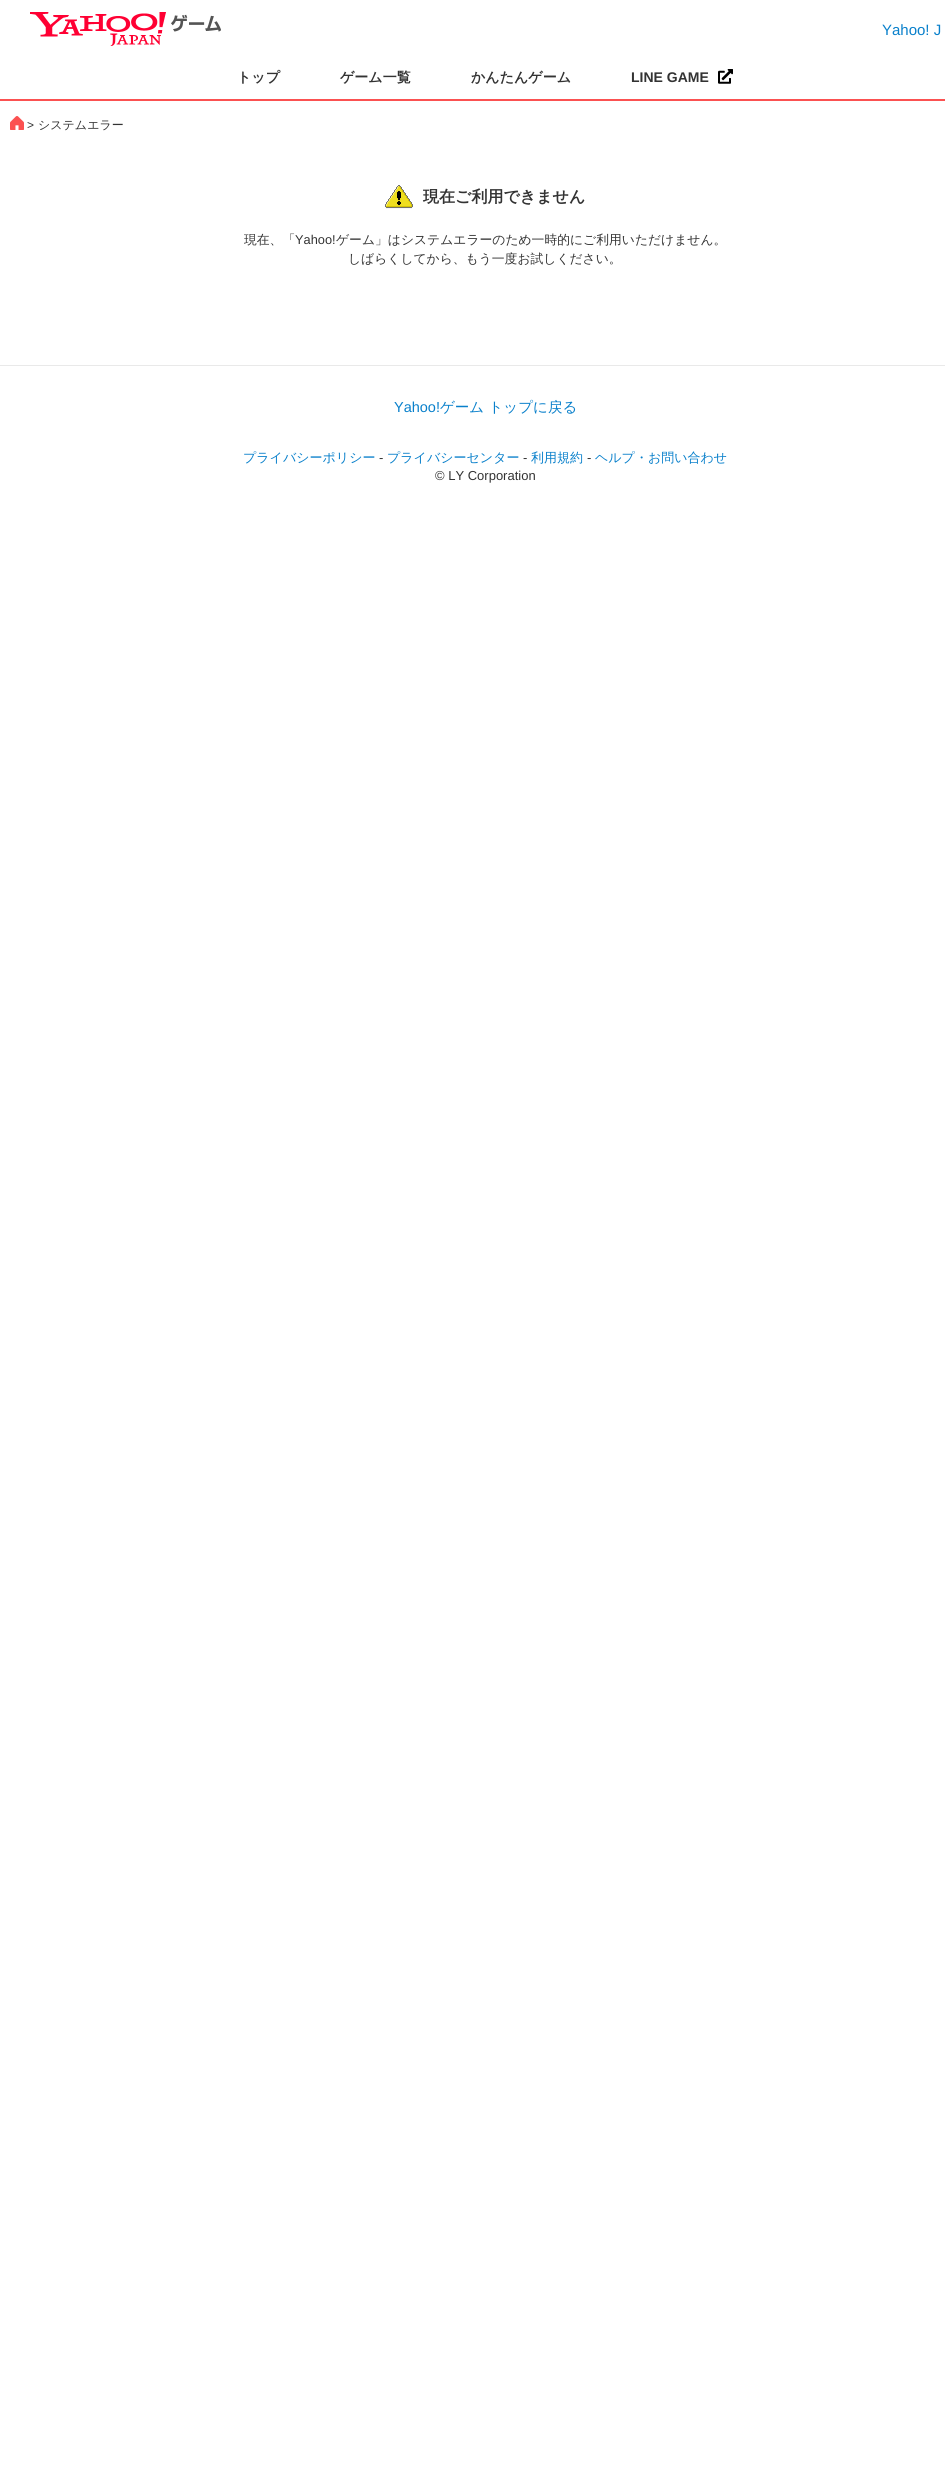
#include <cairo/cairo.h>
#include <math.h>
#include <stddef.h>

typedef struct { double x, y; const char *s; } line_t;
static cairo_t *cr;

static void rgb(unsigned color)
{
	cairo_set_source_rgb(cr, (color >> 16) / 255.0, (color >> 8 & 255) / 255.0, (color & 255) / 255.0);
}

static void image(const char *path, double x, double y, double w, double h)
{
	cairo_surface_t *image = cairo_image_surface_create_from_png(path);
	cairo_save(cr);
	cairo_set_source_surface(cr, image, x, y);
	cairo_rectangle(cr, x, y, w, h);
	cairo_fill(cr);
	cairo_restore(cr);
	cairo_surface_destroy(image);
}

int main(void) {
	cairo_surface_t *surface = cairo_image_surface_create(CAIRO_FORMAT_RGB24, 945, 2482);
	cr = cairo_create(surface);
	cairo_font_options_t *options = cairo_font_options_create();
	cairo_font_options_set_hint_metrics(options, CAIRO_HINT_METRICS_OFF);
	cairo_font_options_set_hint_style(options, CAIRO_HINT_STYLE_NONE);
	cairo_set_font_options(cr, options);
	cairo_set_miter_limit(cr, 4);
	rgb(0xffffff);
	cairo_paint(cr);
	image("img/1.png", 30, 12, 191, 34);
	rgb(0xfb5151);
	cairo_rectangle(cr, 0, 99, 945, 2);
	cairo_fill(cr);
	image("img/2.png", 718, 69, 15, 15);
	image("img/3.png", 10, 116, 14, 14);
	image("img/4.png", 385, 185, 28, 24);
	rgb(0xe9e9e9);
	cairo_rectangle(cr, 0, 365, 945, 1);
	cairo_fill(cr);
	cairo_select_font_face(cr, "Liberation Sans", CAIRO_FONT_SLANT_NORMAL, CAIRO_FONT_WEIGHT_NORMAL);
	cairo_set_font_size(cr, 15);
	rgb(0x0980cb);
	cairo_move_to(cr, 882, 35);
	cairo_show_text(cr, "Yahoo! J");
	cairo_select_font_face(cr, "WenQuanYi Zen Hei", CAIRO_FONT_SLANT_NORMAL, CAIRO_FONT_WEIGHT_BOLD);
	cairo_set_font_size(cr, 14);
	rgb(0x333333);
	{
		static const line_t items[] = {
			{237, 82, "トップ"},
			{340, 82, "ゲーム一覧"},
			{471, 82, "かんたんゲーム"},
		};
		for (size_t i = 0; i < sizeof items / sizeof *items; i++) {
			cairo_move_to(cr, items[i].x, items[i].y);
			cairo_show_text(cr, items[i].s);
		}
	}
	cairo_select_font_face(cr, "Liberation Sans", CAIRO_FONT_SLANT_NORMAL, CAIRO_FONT_WEIGHT_BOLD);
	cairo_move_to(cr, 631, 82);
	cairo_show_text(cr, "LINE GAME");
	cairo_select_font_face(cr, "Liberation Sans", CAIRO_FONT_SLANT_NORMAL, CAIRO_FONT_WEIGHT_NORMAL);
	cairo_set_font_size(cr, 12);
	cairo_move_to(cr, 27, 129);
	cairo_show_text(cr, ">");
	cairo_select_font_face(cr, "WenQuanYi Zen Hei Medium", CAIRO_FONT_SLANT_NORMAL, CAIRO_FONT_WEIGHT_NORMAL);
	cairo_move_to(cr, 38, 129);
	cairo_show_text(cr, "システムエラー");
	cairo_select_font_face(cr, "WenQuanYi Zen Hei", CAIRO_FONT_SLANT_NORMAL, CAIRO_FONT_WEIGHT_BOLD);
	cairo_set_font_size(cr, 16);
	cairo_move_to(cr, 423, 202);
	cairo_show_text(cr, "現在ご利用できません");
	cairo_select_font_face(cr, "WenQuanYi Zen Hei Medium", CAIRO_FONT_SLANT_NORMAL, CAIRO_FONT_WEIGHT_NORMAL);
	cairo_set_font_size(cr, 12.8);
	cairo_move_to(cr, 244, 244);
	cairo_show_text(cr, "現在、「");
	cairo_select_font_face(cr, "Liberation Sans", CAIRO_FONT_SLANT_NORMAL, CAIRO_FONT_WEIGHT_NORMAL);
	cairo_move_to(cr, 295, 244);
	cairo_show_text(cr, "Yahoo!");
	cairo_select_font_face(cr, "WenQuanYi Zen Hei Medium", CAIRO_FONT_SLANT_NORMAL, CAIRO_FONT_WEIGHT_NORMAL);
	cairo_move_to(cr, 336, 244);
	cairo_show_text(cr, "ゲーム」はシステムエラーのため一時的にご利用いただけません。");
	cairo_move_to(cr, 348, 263);
	cairo_show_text(cr, "しばらくしてから、もう一度お試しください。");
	cairo_select_font_face(cr, "Liberation Sans", CAIRO_FONT_SLANT_NORMAL, CAIRO_FONT_WEIGHT_NORMAL);
	cairo_set_font_size(cr, 14.5);
	rgb(0x0980cb);
	cairo_move_to(cr, 394, 412);
	cairo_show_text(cr, "Yahoo!");
	cairo_select_font_face(cr, "WenQuanYi Zen Hei Medium", CAIRO_FONT_SLANT_NORMAL, CAIRO_FONT_WEIGHT_NORMAL);
	cairo_move_to(cr, 440, 412);
	cairo_show_text(cr, "ゲーム トップに戻る");
	cairo_set_font_size(cr, 13);
	cairo_move_to(cr, 243, 462);
	cairo_show_text(cr, "プライバシーポリシー");
	cairo_select_font_face(cr, "Liberation Sans", CAIRO_FONT_SLANT_NORMAL, CAIRO_FONT_WEIGHT_NORMAL);
	rgb(0x333333);
	cairo_move_to(cr, 379, 462);
	cairo_show_text(cr, "-");
	cairo_select_font_face(cr, "WenQuanYi Zen Hei Medium", CAIRO_FONT_SLANT_NORMAL, CAIRO_FONT_WEIGHT_NORMAL);
	rgb(0x0980cb);
	cairo_move_to(cr, 387, 462);
	cairo_show_text(cr, "プライバシーセンター");
	cairo_select_font_face(cr, "Liberation Sans", CAIRO_FONT_SLANT_NORMAL, CAIRO_FONT_WEIGHT_NORMAL);
	rgb(0x333333);
	cairo_move_to(cr, 523, 462);
	cairo_show_text(cr, "-");
	cairo_select_font_face(cr, "WenQuanYi Zen Hei Medium", CAIRO_FONT_SLANT_NORMAL, CAIRO_FONT_WEIGHT_NORMAL);
	rgb(0x0980cb);
	cairo_move_to(cr, 531, 462);
	cairo_show_text(cr, "利用規約");
	cairo_select_font_face(cr, "Liberation Sans", CAIRO_FONT_SLANT_NORMAL, CAIRO_FONT_WEIGHT_NORMAL);
	rgb(0x333333);
	cairo_move_to(cr, 587, 462);
	cairo_show_text(cr, "-");
	cairo_select_font_face(cr, "WenQuanYi Zen Hei Medium", CAIRO_FONT_SLANT_NORMAL, CAIRO_FONT_WEIGHT_NORMAL);
	rgb(0x0980cb);
	cairo_move_to(cr, 595, 462);
	cairo_show_text(cr, "ヘルプ・お問い合わせ");
	cairo_select_font_face(cr, "Liberation Sans", CAIRO_FONT_SLANT_NORMAL, CAIRO_FONT_WEIGHT_NORMAL);
	rgb(0x333333);
	cairo_move_to(cr, 435, 480);
	cairo_show_text(cr, "© LY Corporation");
	cairo_surface_write_to_png(surface, "page.png");
	cairo_font_options_destroy(options);
	cairo_destroy(cr);
	cairo_surface_destroy(surface);
	return 0;
}
